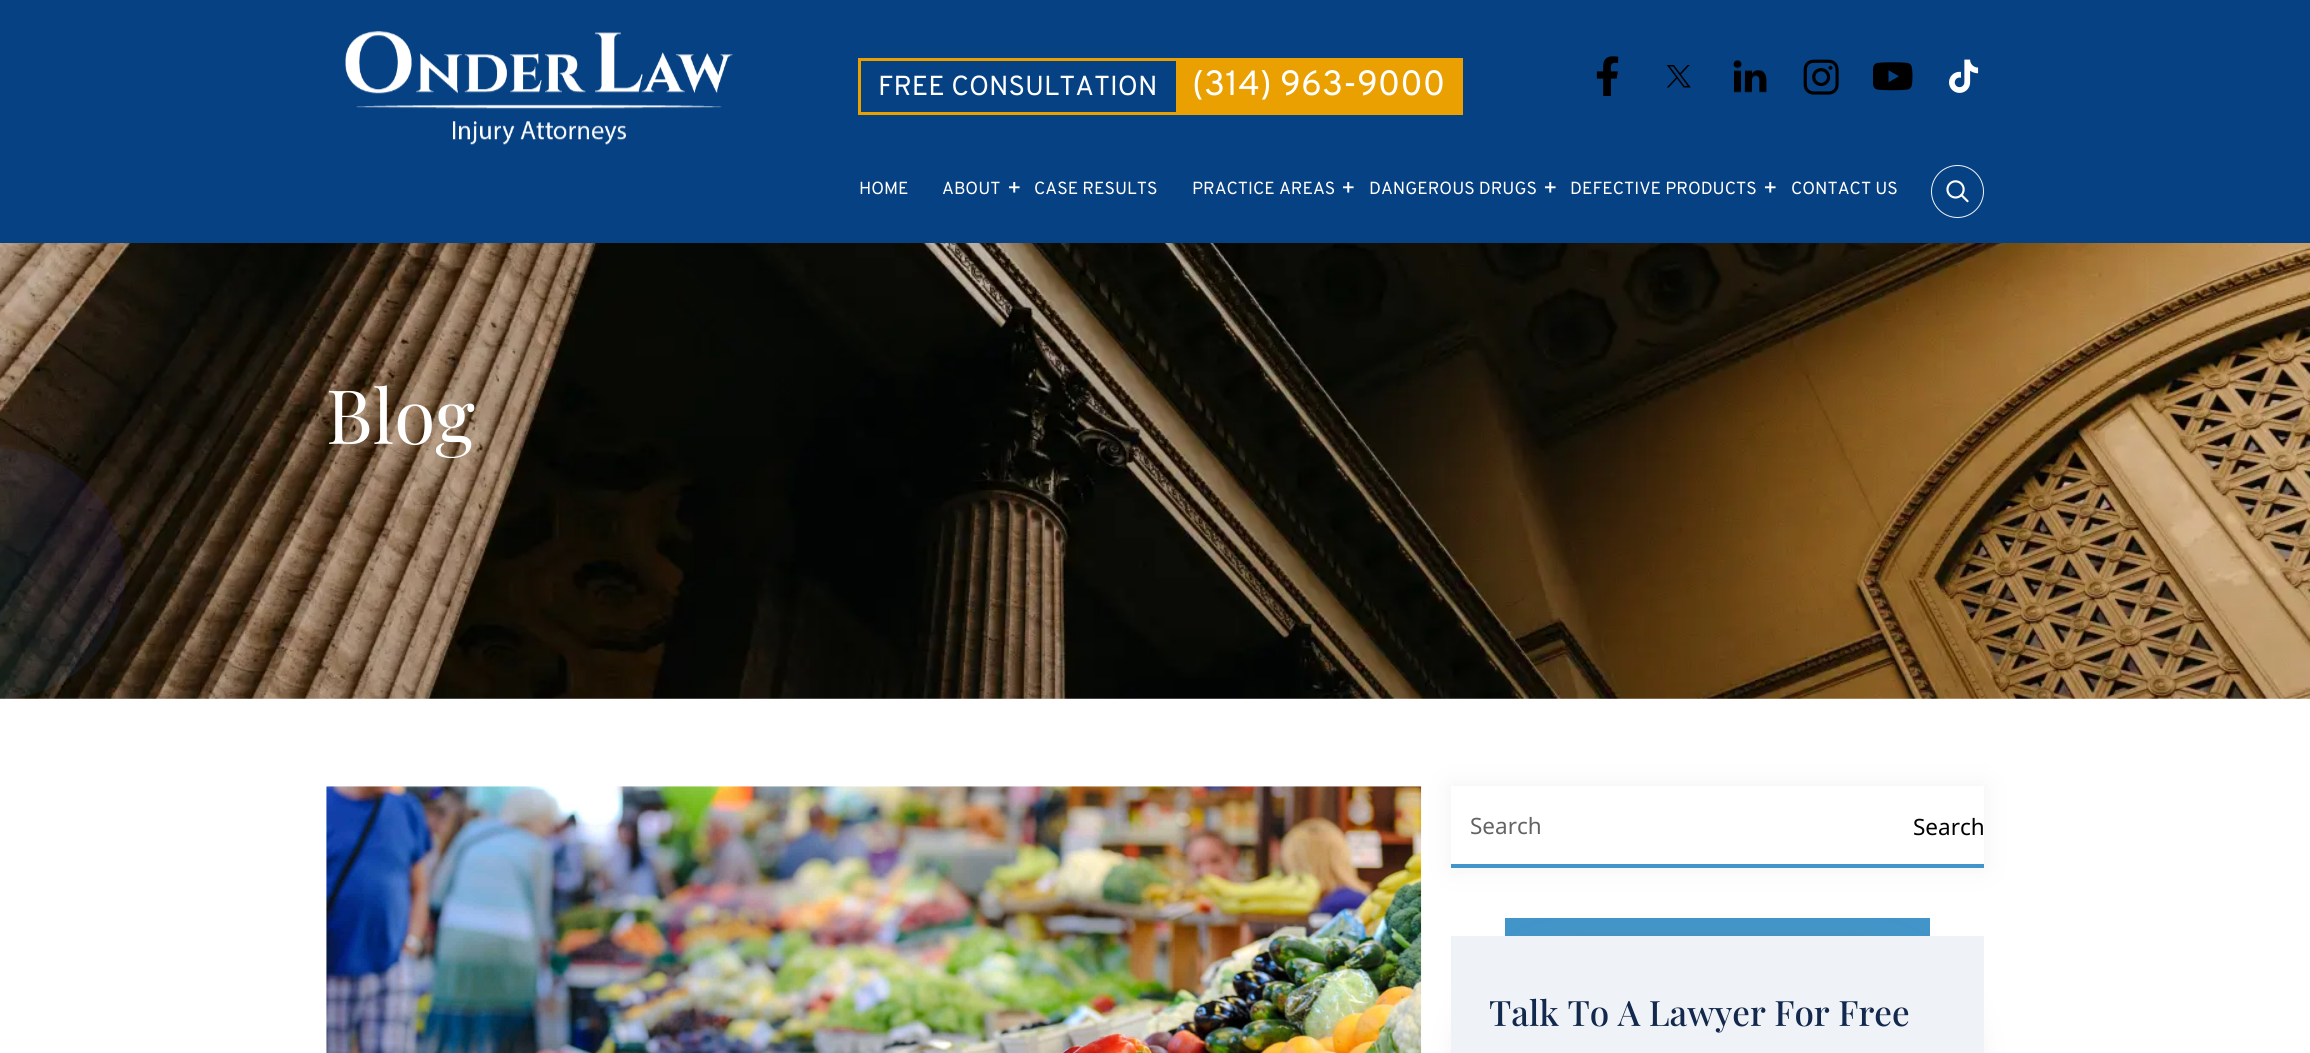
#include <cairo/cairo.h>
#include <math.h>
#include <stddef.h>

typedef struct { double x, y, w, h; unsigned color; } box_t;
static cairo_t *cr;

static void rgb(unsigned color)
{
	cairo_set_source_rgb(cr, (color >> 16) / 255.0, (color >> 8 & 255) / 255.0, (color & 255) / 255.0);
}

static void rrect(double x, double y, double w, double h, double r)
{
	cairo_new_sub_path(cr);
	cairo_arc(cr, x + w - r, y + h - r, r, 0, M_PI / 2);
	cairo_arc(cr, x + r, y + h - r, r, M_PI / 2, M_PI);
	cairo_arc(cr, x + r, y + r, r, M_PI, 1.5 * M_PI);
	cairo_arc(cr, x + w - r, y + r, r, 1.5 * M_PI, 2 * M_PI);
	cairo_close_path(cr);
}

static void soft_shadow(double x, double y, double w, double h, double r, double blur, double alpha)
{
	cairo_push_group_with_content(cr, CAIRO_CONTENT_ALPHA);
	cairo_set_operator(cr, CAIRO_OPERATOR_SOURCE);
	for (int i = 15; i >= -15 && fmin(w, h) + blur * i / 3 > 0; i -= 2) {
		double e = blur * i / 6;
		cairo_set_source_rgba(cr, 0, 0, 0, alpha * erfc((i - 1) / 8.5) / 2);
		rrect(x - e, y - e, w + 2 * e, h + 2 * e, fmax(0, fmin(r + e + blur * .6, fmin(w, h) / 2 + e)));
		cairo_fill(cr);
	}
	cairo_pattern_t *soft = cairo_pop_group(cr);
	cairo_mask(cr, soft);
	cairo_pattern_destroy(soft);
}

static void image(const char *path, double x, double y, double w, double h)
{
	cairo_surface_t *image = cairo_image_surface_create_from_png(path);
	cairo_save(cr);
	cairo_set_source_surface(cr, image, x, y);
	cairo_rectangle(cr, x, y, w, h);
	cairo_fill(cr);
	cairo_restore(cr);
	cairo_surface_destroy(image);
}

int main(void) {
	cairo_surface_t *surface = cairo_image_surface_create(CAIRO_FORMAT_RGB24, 2310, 1053);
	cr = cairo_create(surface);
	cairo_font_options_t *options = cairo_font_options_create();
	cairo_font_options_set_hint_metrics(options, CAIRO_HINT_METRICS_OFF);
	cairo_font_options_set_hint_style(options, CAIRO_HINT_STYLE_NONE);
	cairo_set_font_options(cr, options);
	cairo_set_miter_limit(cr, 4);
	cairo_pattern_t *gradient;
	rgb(0xffffff);
	cairo_paint(cr);
	rgb(0x064183);
	cairo_rectangle(cr, 0, 0, 2310, 243);
	cairo_fill(cr);
	image("img/1.png", 345, 31, 388, 114);
	cairo_rectangle(cr, 859.5, 59.5, 602, 54);
	rgb(0xeaa001);
	cairo_set_line_width(cr, 3);
	cairo_stroke(cr);
	cairo_rectangle(cr, 1176, 61, 284, 51);
	cairo_fill(cr);
	image("img/2.png", 1596, 56, 23, 40);
	image("img/3.png", 1666, 65, 25, 23);
	image("img/4.png", 1733, 60, 34, 33);
	image("img/5.png", 1803, 59, 36, 36);
	image("img/6.png", 1873, 62, 40, 29);
	image("img/7.png", 1949, 59, 30, 34);
	cairo_arc(cr, 1957.5, 191.5, 26, 0, 2 * M_PI);
	rgb(0xeff2f6);
	cairo_set_line_width(cr, 1);
	cairo_stroke(cr);
	image("img/8.png", 1946, 180, 23, 23);
	image("img/9.png", 0, 243, 2310, 456);
	gradient = cairo_pattern_create_linear(-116, 619, 116, 528);
	cairo_pattern_add_color_stop_rgba(gradient, 0, 0, 0.976, 0.761, 0.1);
	cairo_pattern_add_color_stop_rgba(gradient, 1, 0.275, 0.204, 0.929, 0.08);
	cairo_set_source(cr, gradient);
	cairo_pattern_destroy(gradient);
	cairo_new_path(cr);
	cairo_move_to(cr, -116, 619);
	cairo_curve_to(cr, -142, 555, -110, 482, -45, 457);
	cairo_curve_to(cr, 19, 432, 91, 464, 116, 528);
	cairo_curve_to(cr, 142, 592, 110, 665, 45, 690);
	cairo_curve_to(cr, -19, 715, -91, 683, -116, 619);
	cairo_close_path(cr);
	cairo_fill(cr);
	image("img/10.png", 326, 786, 1096, 267);
	rgb(0x737373);
	soft_shadow(1451, 786, 533, 82, 0, 12.5, 0.1);
	{
		static const box_t items[] = {
			{1451, 786, 533, 78, 0xffffff},
			{1451, 864, 533, 4, 0x4295c9},
			{1505, 918, 425, 18, 0x4295c9},
		};
		for (size_t i = 0; i < sizeof items / sizeof *items; i++) {
			rgb(items[i].color);
			cairo_rectangle(cr, items[i].x, items[i].y, items[i].w, items[i].h);
			cairo_fill(cr);
		}
	}
	rgb(0x737373);
	soft_shadow(1451, 936, 533, 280, 125, 12.5, 0.1);
	rgb(0xeff2f6);
	cairo_rectangle(cr, 1451, 936, 533, 117);
	cairo_fill(cr);
	cairo_select_font_face(cr, "Overpass", CAIRO_FONT_SLANT_NORMAL, CAIRO_FONT_WEIGHT_NORMAL);
	cairo_set_font_size(cr, 27.5);
	rgb(0xffffff);
	cairo_move_to(cr, 878, 95);
	cairo_show_text(cr, "FREE CONSULTATION");
	cairo_set_font_size(cr, 35);
	cairo_move_to(cr, 1192, 95);
	cairo_show_text(cr, "(314) 963-9000");
	cairo_set_font_size(cr, 17.5);
	cairo_move_to(cr, 859, 194);
	cairo_show_text(cr, "HOME");
	cairo_move_to(cr, 942, 194);
	cairo_show_text(cr, "ABOUT");
	cairo_set_font_size(cr, 22.5);
	cairo_move_to(cr, 1007, 195);
	cairo_show_text(cr, "+");
	cairo_set_font_size(cr, 17.5);
	cairo_move_to(cr, 1034, 194);
	cairo_show_text(cr, "CASE RESULTS");
	cairo_move_to(cr, 1192, 194);
	cairo_show_text(cr, "PRACTICE AREAS");
	cairo_set_font_size(cr, 22.5);
	cairo_move_to(cr, 1341, 195);
	cairo_show_text(cr, "+");
	cairo_set_font_size(cr, 17.5);
	cairo_move_to(cr, 1369, 194);
	cairo_show_text(cr, "DANGEROUS DRUGS");
	cairo_set_font_size(cr, 22.5);
	cairo_move_to(cr, 1543, 195);
	cairo_show_text(cr, "+");
	cairo_set_font_size(cr, 17.5);
	cairo_move_to(cr, 1570, 194);
	cairo_show_text(cr, "DEFECTIVE PRODUCTS");
	cairo_set_font_size(cr, 22.5);
	cairo_move_to(cr, 1763, 195);
	cairo_show_text(cr, "+");
	cairo_set_font_size(cr, 17.5);
	cairo_move_to(cr, 1791, 194);
	cairo_show_text(cr, "CONTACT US");
	cairo_select_font_face(cr, "Playfair Display", CAIRO_FONT_SLANT_NORMAL, CAIRO_FONT_WEIGHT_NORMAL);
	cairo_set_font_size(cr, 75);
	cairo_move_to(cr, 326, 444);
	cairo_show_text(cr, "Blog");
	cairo_select_font_face(cr, "Noto Sans", CAIRO_FONT_SLANT_NORMAL, CAIRO_FONT_WEIGHT_NORMAL);
	cairo_set_font_size(cr, 22.5);
	rgb(0x636363);
	cairo_move_to(cr, 1470, 834);
	cairo_show_text(cr, "Search");
	rgb(0x000000);
	cairo_move_to(cr, 1913, 835);
	cairo_show_text(cr, "Search");
	cairo_select_font_face(cr, "Playfair Display Medium", CAIRO_FONT_SLANT_NORMAL, CAIRO_FONT_WEIGHT_NORMAL);
	cairo_set_font_size(cr, 35);
	rgb(0x12284d);
	cairo_move_to(cr, 1489, 1026);
	cairo_show_text(cr, "Talk To A Lawyer For Free");
	cairo_surface_write_to_png(surface, "page.png");
	cairo_font_options_destroy(options);
	cairo_destroy(cr);
	cairo_surface_destroy(surface);
	return 0;
}
